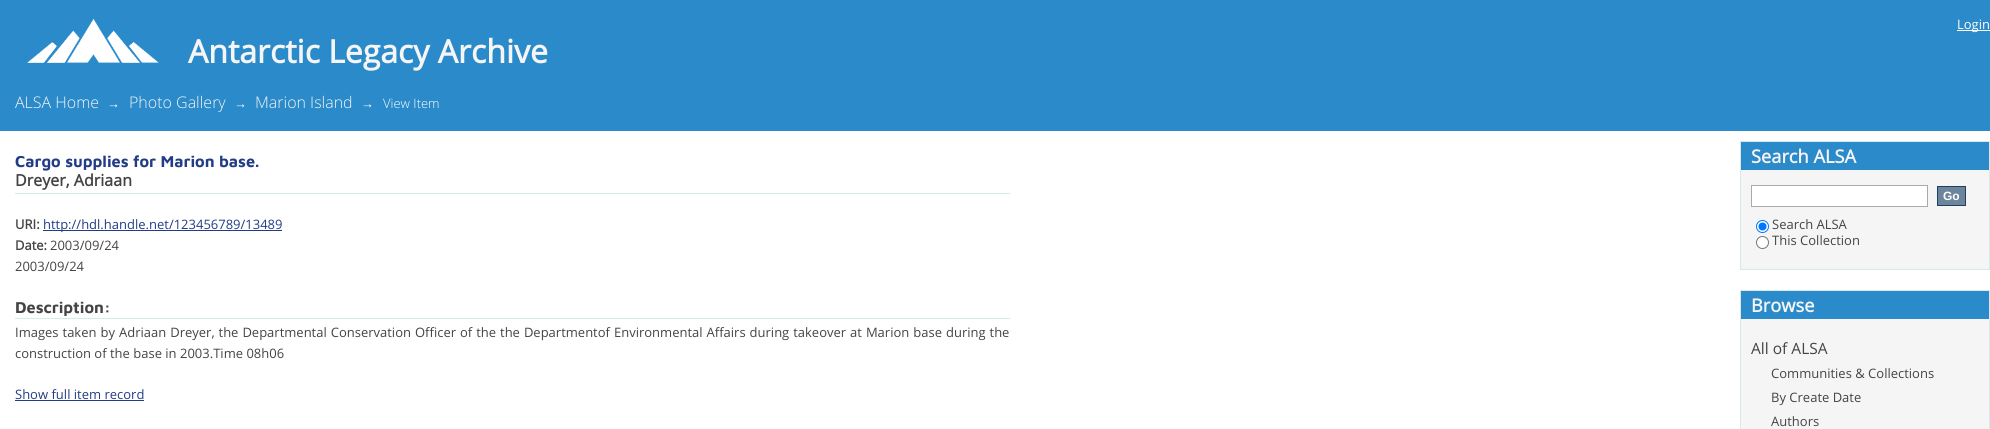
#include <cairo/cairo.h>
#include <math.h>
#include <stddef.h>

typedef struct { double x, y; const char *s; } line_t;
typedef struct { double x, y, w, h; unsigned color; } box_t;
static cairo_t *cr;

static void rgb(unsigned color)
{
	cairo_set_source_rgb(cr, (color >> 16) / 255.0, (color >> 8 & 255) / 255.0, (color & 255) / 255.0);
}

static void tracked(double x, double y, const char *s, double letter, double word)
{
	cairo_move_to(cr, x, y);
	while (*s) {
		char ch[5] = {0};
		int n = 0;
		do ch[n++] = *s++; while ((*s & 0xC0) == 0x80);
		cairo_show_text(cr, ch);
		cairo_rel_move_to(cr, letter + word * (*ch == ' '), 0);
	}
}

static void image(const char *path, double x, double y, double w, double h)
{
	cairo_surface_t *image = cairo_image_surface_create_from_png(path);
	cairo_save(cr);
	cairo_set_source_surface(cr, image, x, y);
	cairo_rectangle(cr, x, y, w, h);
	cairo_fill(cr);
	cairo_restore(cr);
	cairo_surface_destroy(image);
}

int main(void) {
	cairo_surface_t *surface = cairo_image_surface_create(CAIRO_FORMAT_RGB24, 1990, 429);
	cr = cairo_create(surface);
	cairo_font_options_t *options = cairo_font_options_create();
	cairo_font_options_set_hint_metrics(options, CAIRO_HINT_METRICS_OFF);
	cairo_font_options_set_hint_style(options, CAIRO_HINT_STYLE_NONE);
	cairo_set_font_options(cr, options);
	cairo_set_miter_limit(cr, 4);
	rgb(0xffffff);
	cairo_paint(cr);
	rgb(0x2b8aca);
	cairo_rectangle(cr, 0, 0, 1990, 131);
	cairo_fill(cr);
	rgb(0xffffff);
	cairo_rectangle(cr, 1957, 30, 33, 1);
	cairo_fill(cr);
	image("img/1.png", 27, 18, 132, 45);
	{
		static const box_t items[] = {
			{15, 193, 995, 1, 0xd8e8eb},
			{43, 230, 239, 1, 0x223c86},
			{15, 318, 995, 1, 0xd8e8eb},
			{15, 400, 129, 1, 0x223c86},
			{1741, 142, 248, 28, 0x2b8aca},
			{1740, 141, 250, 1, 0xd8e8eb},
			{1989, 141, 1, 129, 0xd8e8eb},
			{1740, 141, 1, 29, 0xd8e8eb},
			{1741, 170, 248, 99, 0xf5f5f5},
			{1740, 269, 250, 1, 0xd8e8eb},
			{1740, 170, 1, 100, 0xd8e8eb},
		};
		for (size_t i = 0; i < sizeof items / sizeof *items; i++) {
			rgb(items[i].color);
			cairo_rectangle(cr, items[i].x, items[i].y, items[i].w, items[i].h);
			cairo_fill(cr);
		}
	}
	rgb(0xffffff);
	cairo_rectangle(cr, 1751.5, 185.5, 176, 21);
	cairo_fill_preserve(cr);
	rgb(0xaaaaaa);
	cairo_set_line_width(cr, 1);
	cairo_stroke(cr);
	rgb(0x6d859c);
	cairo_rectangle(cr, 1937.5, 186.5, 28, 19);
	cairo_fill_preserve(cr);
	rgb(0x1f3f5e);
	cairo_stroke(cr);
	rgb(0xffffff);
	cairo_arc(cr, 1762.5, 226.5, 6, 0, 2 * M_PI);
	cairo_fill_preserve(cr);
	rgb(0x0075ff);
	cairo_stroke(cr);
	cairo_arc(cr, 1762.5, 226.5, 4, 0, 2 * M_PI);
	cairo_fill(cr);
	rgb(0xffffff);
	cairo_arc(cr, 1762.5, 242.5, 6, 0, 2 * M_PI);
	cairo_fill_preserve(cr);
	rgb(0x767676);
	cairo_stroke(cr);
	{
		static const box_t items[] = {
			{1741, 291, 248, 28, 0x2b8aca},
			{1740, 290, 250, 1, 0xd8e8eb},
			{1989, 290, 1, 139, 0xd8e8eb},
			{1740, 290, 1, 139, 0xd8e8eb},
			{1741, 319, 248, 110, 0xf5f5f5},
		};
		for (size_t i = 0; i < sizeof items / sizeof *items; i++) {
			rgb(items[i].color);
			cairo_rectangle(cr, items[i].x, items[i].y, items[i].w, items[i].h);
			cairo_fill(cr);
		}
	}
	cairo_select_font_face(cr, "Open Sans", CAIRO_FONT_SLANT_NORMAL, CAIRO_FONT_WEIGHT_NORMAL);
	cairo_set_font_size(cr, 13);
	rgb(0xffffff);
	cairo_move_to(cr, 1957, 29);
	cairo_show_text(cr, "Login");
	cairo_select_font_face(cr, "Open Sans", CAIRO_FONT_SLANT_NORMAL, CAIRO_FONT_WEIGHT_BOLD);
	cairo_set_font_size(cr, 32);
	rgb(0xf5f5f5);
	cairo_move_to(cr, 188, 63);
	cairo_show_text(cr, "Antarctic Legacy Archive");
	cairo_select_font_face(cr, "Open Sans Light", CAIRO_FONT_SLANT_NORMAL, CAIRO_FONT_WEIGHT_NORMAL);
	cairo_set_font_size(cr, 16);
	cairo_move_to(cr, 15, 108);
	cairo_show_text(cr, "ALSA Home");
	cairo_select_font_face(cr, "Liberation Serif", CAIRO_FONT_SLANT_NORMAL, CAIRO_FONT_WEIGHT_NORMAL);
	cairo_set_font_size(cr, 13);
	rgb(0xffffff);
	cairo_move_to(cr, 107, 108);
	cairo_show_text(cr, "→");
	cairo_select_font_face(cr, "Open Sans Light", CAIRO_FONT_SLANT_NORMAL, CAIRO_FONT_WEIGHT_NORMAL);
	cairo_set_font_size(cr, 16);
	rgb(0xf5f5f5);
	cairo_move_to(cr, 129, 108);
	cairo_show_text(cr, "Photo Gallery");
	cairo_select_font_face(cr, "Liberation Serif", CAIRO_FONT_SLANT_NORMAL, CAIRO_FONT_WEIGHT_NORMAL);
	cairo_set_font_size(cr, 13);
	rgb(0xffffff);
	cairo_move_to(cr, 234, 108);
	cairo_show_text(cr, "→");
	cairo_select_font_face(cr, "Open Sans Light", CAIRO_FONT_SLANT_NORMAL, CAIRO_FONT_WEIGHT_NORMAL);
	cairo_set_font_size(cr, 16);
	rgb(0xf5f5f5);
	cairo_move_to(cr, 255, 108);
	cairo_show_text(cr, "Marion Island");
	cairo_select_font_face(cr, "Liberation Serif", CAIRO_FONT_SLANT_NORMAL, CAIRO_FONT_WEIGHT_NORMAL);
	cairo_set_font_size(cr, 13);
	rgb(0xffffff);
	cairo_move_to(cr, 361, 108);
	cairo_show_text(cr, "→");
	cairo_select_font_face(cr, "Open Sans Light", CAIRO_FONT_SLANT_NORMAL, CAIRO_FONT_WEIGHT_NORMAL);
	cairo_move_to(cr, 383, 108);
	cairo_show_text(cr, "View Item");
	cairo_select_font_face(cr, "Maven Pro", CAIRO_FONT_SLANT_NORMAL, CAIRO_FONT_WEIGHT_BOLD);
	cairo_set_font_size(cr, 16.25);
	rgb(0x223c86);
	cairo_move_to(cr, 15, 167);
	cairo_show_text(cr, "Cargo supplies for Marion base.");
	cairo_select_font_face(cr, "Open Sans", CAIRO_FONT_SLANT_NORMAL, CAIRO_FONT_WEIGHT_BOLD);
	cairo_set_font_size(cr, 16);
	rgb(0x444444);
	cairo_move_to(cr, 15, 186);
	cairo_show_text(cr, "Dreyer, Adriaan");
	cairo_set_font_size(cr, 13);
	cairo_move_to(cr, 15, 229);
	cairo_show_text(cr, "URI:");
	cairo_select_font_face(cr, "Open Sans", CAIRO_FONT_SLANT_NORMAL, CAIRO_FONT_WEIGHT_NORMAL);
	rgb(0x223c86);
	cairo_move_to(cr, 43, 229);
	cairo_show_text(cr, "http://hdl.handle.net/123456789/13489");
	cairo_select_font_face(cr, "Open Sans", CAIRO_FONT_SLANT_NORMAL, CAIRO_FONT_WEIGHT_BOLD);
	rgb(0x444444);
	cairo_move_to(cr, 15, 250);
	cairo_show_text(cr, "Date:");
	cairo_select_font_face(cr, "Open Sans", CAIRO_FONT_SLANT_NORMAL, CAIRO_FONT_WEIGHT_NORMAL);
	cairo_move_to(cr, 50, 250);
	cairo_show_text(cr, "2003/09/24");
	cairo_move_to(cr, 15, 271);
	cairo_show_text(cr, "2003/09/24");
	cairo_select_font_face(cr, "Maven Pro", CAIRO_FONT_SLANT_NORMAL, CAIRO_FONT_WEIGHT_BOLD);
	cairo_set_font_size(cr, 16.25);
	cairo_move_to(cr, 15, 313);
	cairo_show_text(cr, "Description:");
	cairo_select_font_face(cr, "Open Sans", CAIRO_FONT_SLANT_NORMAL, CAIRO_FONT_WEIGHT_NORMAL);
	cairo_set_font_size(cr, 13);
	tracked(15, 337, "Images taken by Adriaan Dreyer, the Departmental Conservation Officer of the the Departmentof Environmental Affairs during takeover at Marion base during the", 0, 0.6);
	cairo_move_to(cr, 15, 358);
	cairo_show_text(cr, "construction of the base in 2003.Time 08h06");
	rgb(0x223c86);
	cairo_move_to(cr, 15, 399);
	cairo_show_text(cr, "Show full item record");
	cairo_select_font_face(cr, "Open Sans", CAIRO_FONT_SLANT_NORMAL, CAIRO_FONT_WEIGHT_BOLD);
	cairo_set_font_size(cr, 18.25);
	rgb(0xf5f5f5);
	cairo_move_to(cr, 1751, 163);
	cairo_show_text(cr, "Search ALSA");
	cairo_select_font_face(cr, "Liberation Sans", CAIRO_FONT_SLANT_NORMAL, CAIRO_FONT_WEIGHT_BOLD);
	cairo_set_font_size(cr, 12);
	rgb(0xffffff);
	cairo_move_to(cr, 1943, 200);
	cairo_show_text(cr, "Go");
	cairo_select_font_face(cr, "Open Sans", CAIRO_FONT_SLANT_NORMAL, CAIRO_FONT_WEIGHT_NORMAL);
	cairo_set_font_size(cr, 13);
	rgb(0x444444);
	cairo_move_to(cr, 1772, 229);
	cairo_show_text(cr, "Search ALSA");
	cairo_move_to(cr, 1772, 245);
	cairo_show_text(cr, "This Collection");
	cairo_select_font_face(cr, "Open Sans", CAIRO_FONT_SLANT_NORMAL, CAIRO_FONT_WEIGHT_BOLD);
	cairo_set_font_size(cr, 18.25);
	rgb(0xf5f5f5);
	cairo_move_to(cr, 1751, 312);
	cairo_show_text(cr, "Browse");
	cairo_select_font_face(cr, "Open Sans", CAIRO_FONT_SLANT_NORMAL, CAIRO_FONT_WEIGHT_NORMAL);
	cairo_set_font_size(cr, 15.5);
	rgb(0x444444);
	cairo_move_to(cr, 1751, 354);
	cairo_show_text(cr, "All of ALSA");
	cairo_set_font_size(cr, 13);
	{
		static const line_t items[] = {
			{1771, 378, "Communities & Collections"},
			{1771, 402, "By Create Date"},
			{1771, 426, "Authors"},
		};
		for (size_t i = 0; i < sizeof items / sizeof *items; i++) {
			cairo_move_to(cr, items[i].x, items[i].y);
			cairo_show_text(cr, items[i].s);
		}
	}
	cairo_surface_write_to_png(surface, "page.png");
	cairo_font_options_destroy(options);
	cairo_destroy(cr);
	cairo_surface_destroy(surface);
	return 0;
}
